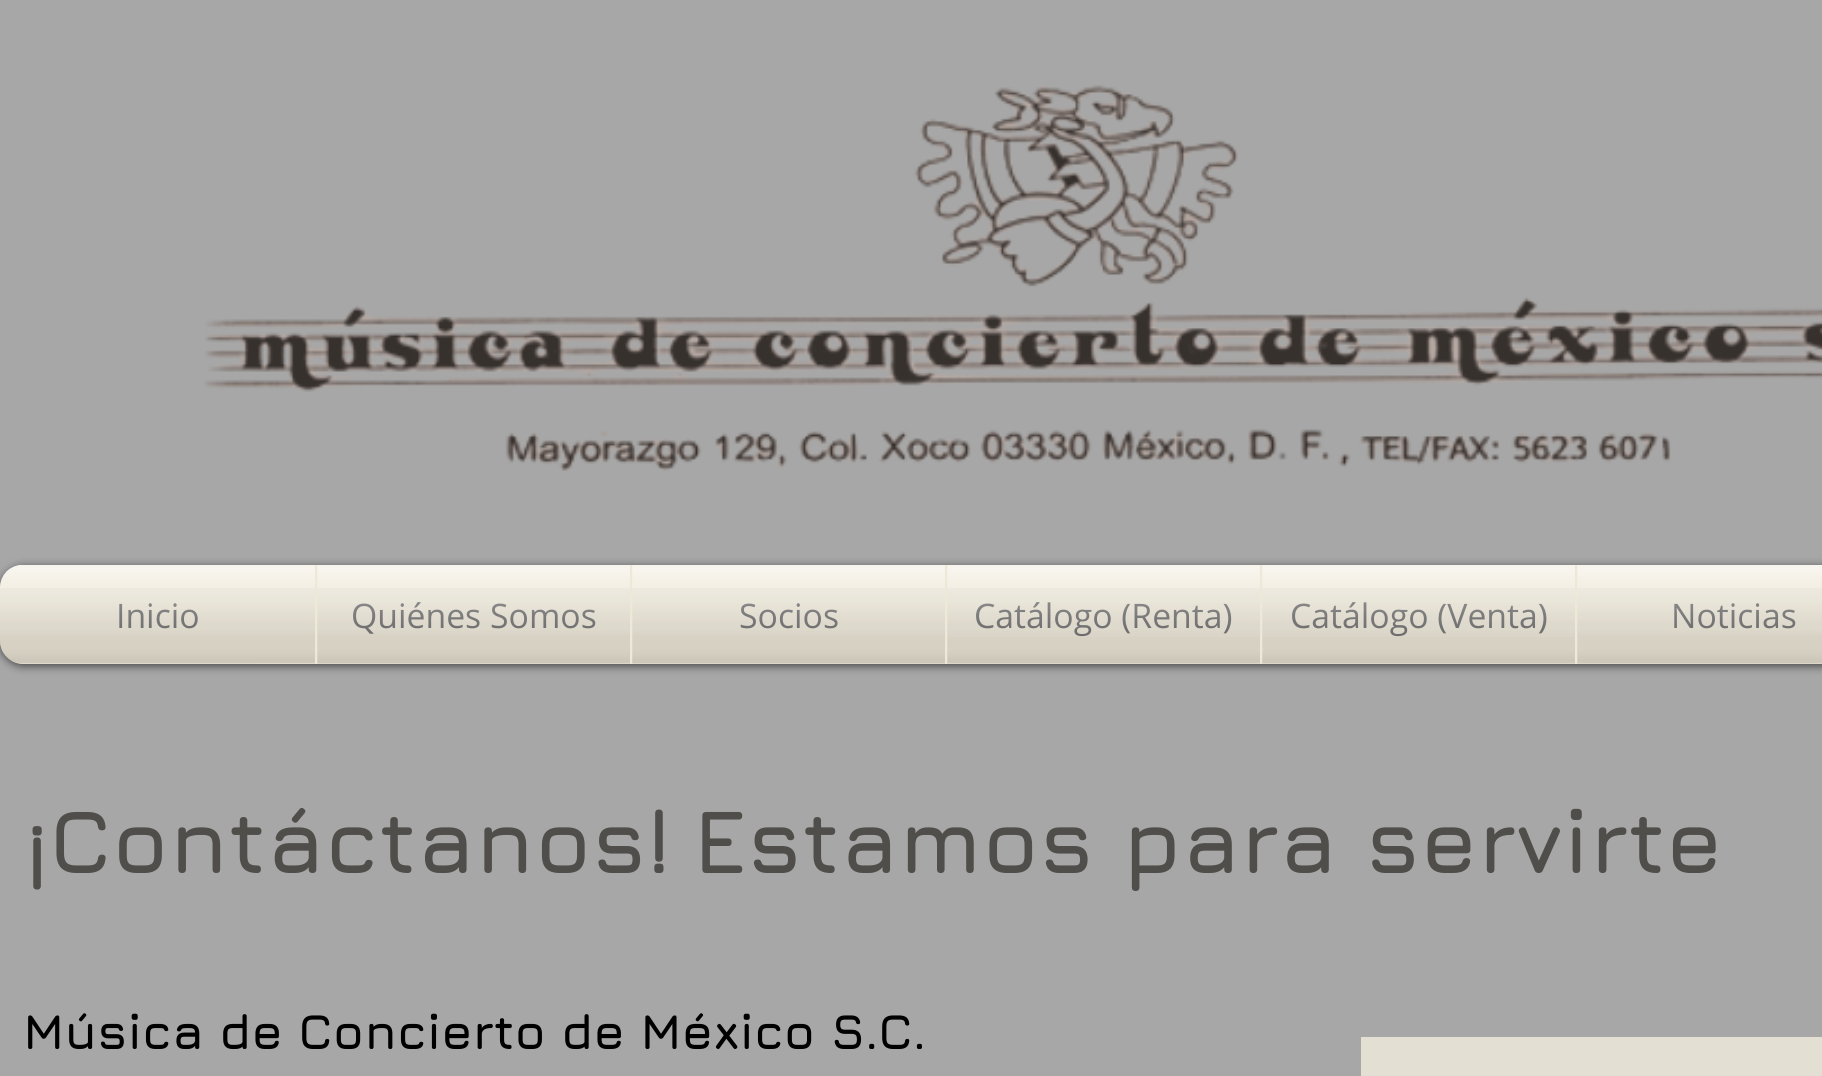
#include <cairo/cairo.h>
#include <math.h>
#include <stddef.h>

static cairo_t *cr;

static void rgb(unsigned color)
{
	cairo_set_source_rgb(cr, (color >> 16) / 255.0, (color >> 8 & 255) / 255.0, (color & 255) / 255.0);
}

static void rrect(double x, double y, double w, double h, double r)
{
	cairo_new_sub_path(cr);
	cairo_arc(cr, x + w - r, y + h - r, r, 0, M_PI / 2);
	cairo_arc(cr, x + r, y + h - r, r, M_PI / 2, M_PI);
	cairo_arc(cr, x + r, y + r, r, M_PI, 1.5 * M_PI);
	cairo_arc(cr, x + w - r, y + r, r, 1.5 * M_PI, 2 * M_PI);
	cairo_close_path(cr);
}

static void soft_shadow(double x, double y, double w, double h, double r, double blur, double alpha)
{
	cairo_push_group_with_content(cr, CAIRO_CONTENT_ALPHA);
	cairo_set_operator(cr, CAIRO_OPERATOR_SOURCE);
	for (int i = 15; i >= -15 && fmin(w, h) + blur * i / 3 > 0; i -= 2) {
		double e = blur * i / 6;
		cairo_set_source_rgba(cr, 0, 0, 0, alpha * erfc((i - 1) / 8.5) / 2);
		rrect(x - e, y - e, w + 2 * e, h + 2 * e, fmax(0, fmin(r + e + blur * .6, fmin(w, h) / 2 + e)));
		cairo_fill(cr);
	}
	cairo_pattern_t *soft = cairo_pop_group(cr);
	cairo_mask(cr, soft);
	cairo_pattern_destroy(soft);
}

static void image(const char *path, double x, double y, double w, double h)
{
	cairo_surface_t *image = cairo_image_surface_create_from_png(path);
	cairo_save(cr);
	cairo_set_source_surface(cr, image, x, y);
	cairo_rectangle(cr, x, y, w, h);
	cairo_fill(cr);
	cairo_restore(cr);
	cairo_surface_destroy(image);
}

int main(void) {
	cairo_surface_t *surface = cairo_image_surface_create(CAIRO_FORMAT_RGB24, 1822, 1076);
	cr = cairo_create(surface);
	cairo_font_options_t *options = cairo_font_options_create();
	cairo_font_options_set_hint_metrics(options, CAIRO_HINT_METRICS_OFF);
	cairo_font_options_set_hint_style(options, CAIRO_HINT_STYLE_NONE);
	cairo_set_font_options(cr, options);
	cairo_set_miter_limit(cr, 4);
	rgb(0xa7a7a7);
	cairo_paint(cr);
	image("img/1.png", 204, 85, 1618, 386);
	rgb(0x000000);
	soft_shadow(0, 567, 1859, 99, 23, 4.5, 0.6);
	image("img/2.png", 0, 565, 23, 23);
	image("img/3.png", 0, 641, 23, 23);
	rgb(0xeee8d8);
	cairo_new_path(cr);
	cairo_move_to(cr, 23, 565);
	cairo_line_to(cr, 315, 565);
	cairo_line_to(cr, 315, 664);
	cairo_line_to(cr, 23, 664);
	cairo_curve_to(cr, 10.5, 664, 0, 653.5, 0, 641);
	cairo_line_to(cr, 0, 588);
	cairo_curve_to(cr, 0, 575.5, 10.5, 565, 23, 565);
	cairo_close_path(cr);
	cairo_fill(cr);
	cairo_rectangle(cr, 315, 565, 1507, 99);
	cairo_fill(cr);
	rgb(0xe3dfd3);
	cairo_rectangle(cr, 1361, 1037, 461, 39);
	cairo_fill(cr);
	cairo_select_font_face(cr, "Open Sans", CAIRO_FONT_SLANT_NORMAL, CAIRO_FONT_WEIGHT_NORMAL);
	cairo_set_font_size(cr, 33.75);
	rgb(0x696969);
	cairo_move_to(cr, 116, 628);
	cairo_show_text(cr, "Inicio");
	image("img/4.png", 0, 565, 315, 69);
	image("img/5.png", 0, 588, 315, 76);
	cairo_move_to(cr, 351, 628);
	cairo_show_text(cr, "Quiénes Somos");
	image("img/6.png", 317, 565, 313, 69);
	image("img/7.png", 317, 588, 313, 76);
	cairo_move_to(cr, 739, 628);
	cairo_show_text(cr, "Socios");
	image("img/8.png", 632, 565, 313, 69);
	image("img/9.png", 632, 588, 313, 76);
	cairo_move_to(cr, 974, 628);
	cairo_show_text(cr, "Catálogo (Renta)");
	image("img/10.png", 947, 565, 313, 72);
	image("img/11.png", 947, 588, 313, 76);
	cairo_move_to(cr, 1290, 628);
	cairo_show_text(cr, "Catálogo (Venta)");
	image("img/12.png", 1262, 565, 313, 72);
	image("img/13.png", 1262, 588, 313, 76);
	cairo_move_to(cr, 1671, 628);
	cairo_show_text(cr, "Noticias");
	image("img/14.png", 1577, 565, 245, 69);
	image("img/15.png", 1577, 588, 245, 76);
	cairo_select_font_face(cr, "Jura", CAIRO_FONT_SLANT_NORMAL, CAIRO_FONT_WEIGHT_BOLD);
	cairo_set_font_size(cr, 90);
	rgb(0x4f4e4a);
	cairo_move_to(cr, 25, 873);
	cairo_show_text(cr, "¡Contáctanos!");
	cairo_move_to(cr, 693, 873);
	cairo_show_text(cr, "Estamos para servirte");
	cairo_set_font_size(cr, 49.5);
	rgb(0x000000);
	cairo_move_to(cr, 23, 1049);
	cairo_show_text(cr, "Música de Concierto de México S.C.");
	cairo_surface_write_to_png(surface, "page.png");
	cairo_font_options_destroy(options);
	cairo_destroy(cr);
	cairo_surface_destroy(surface);
	return 0;
}
